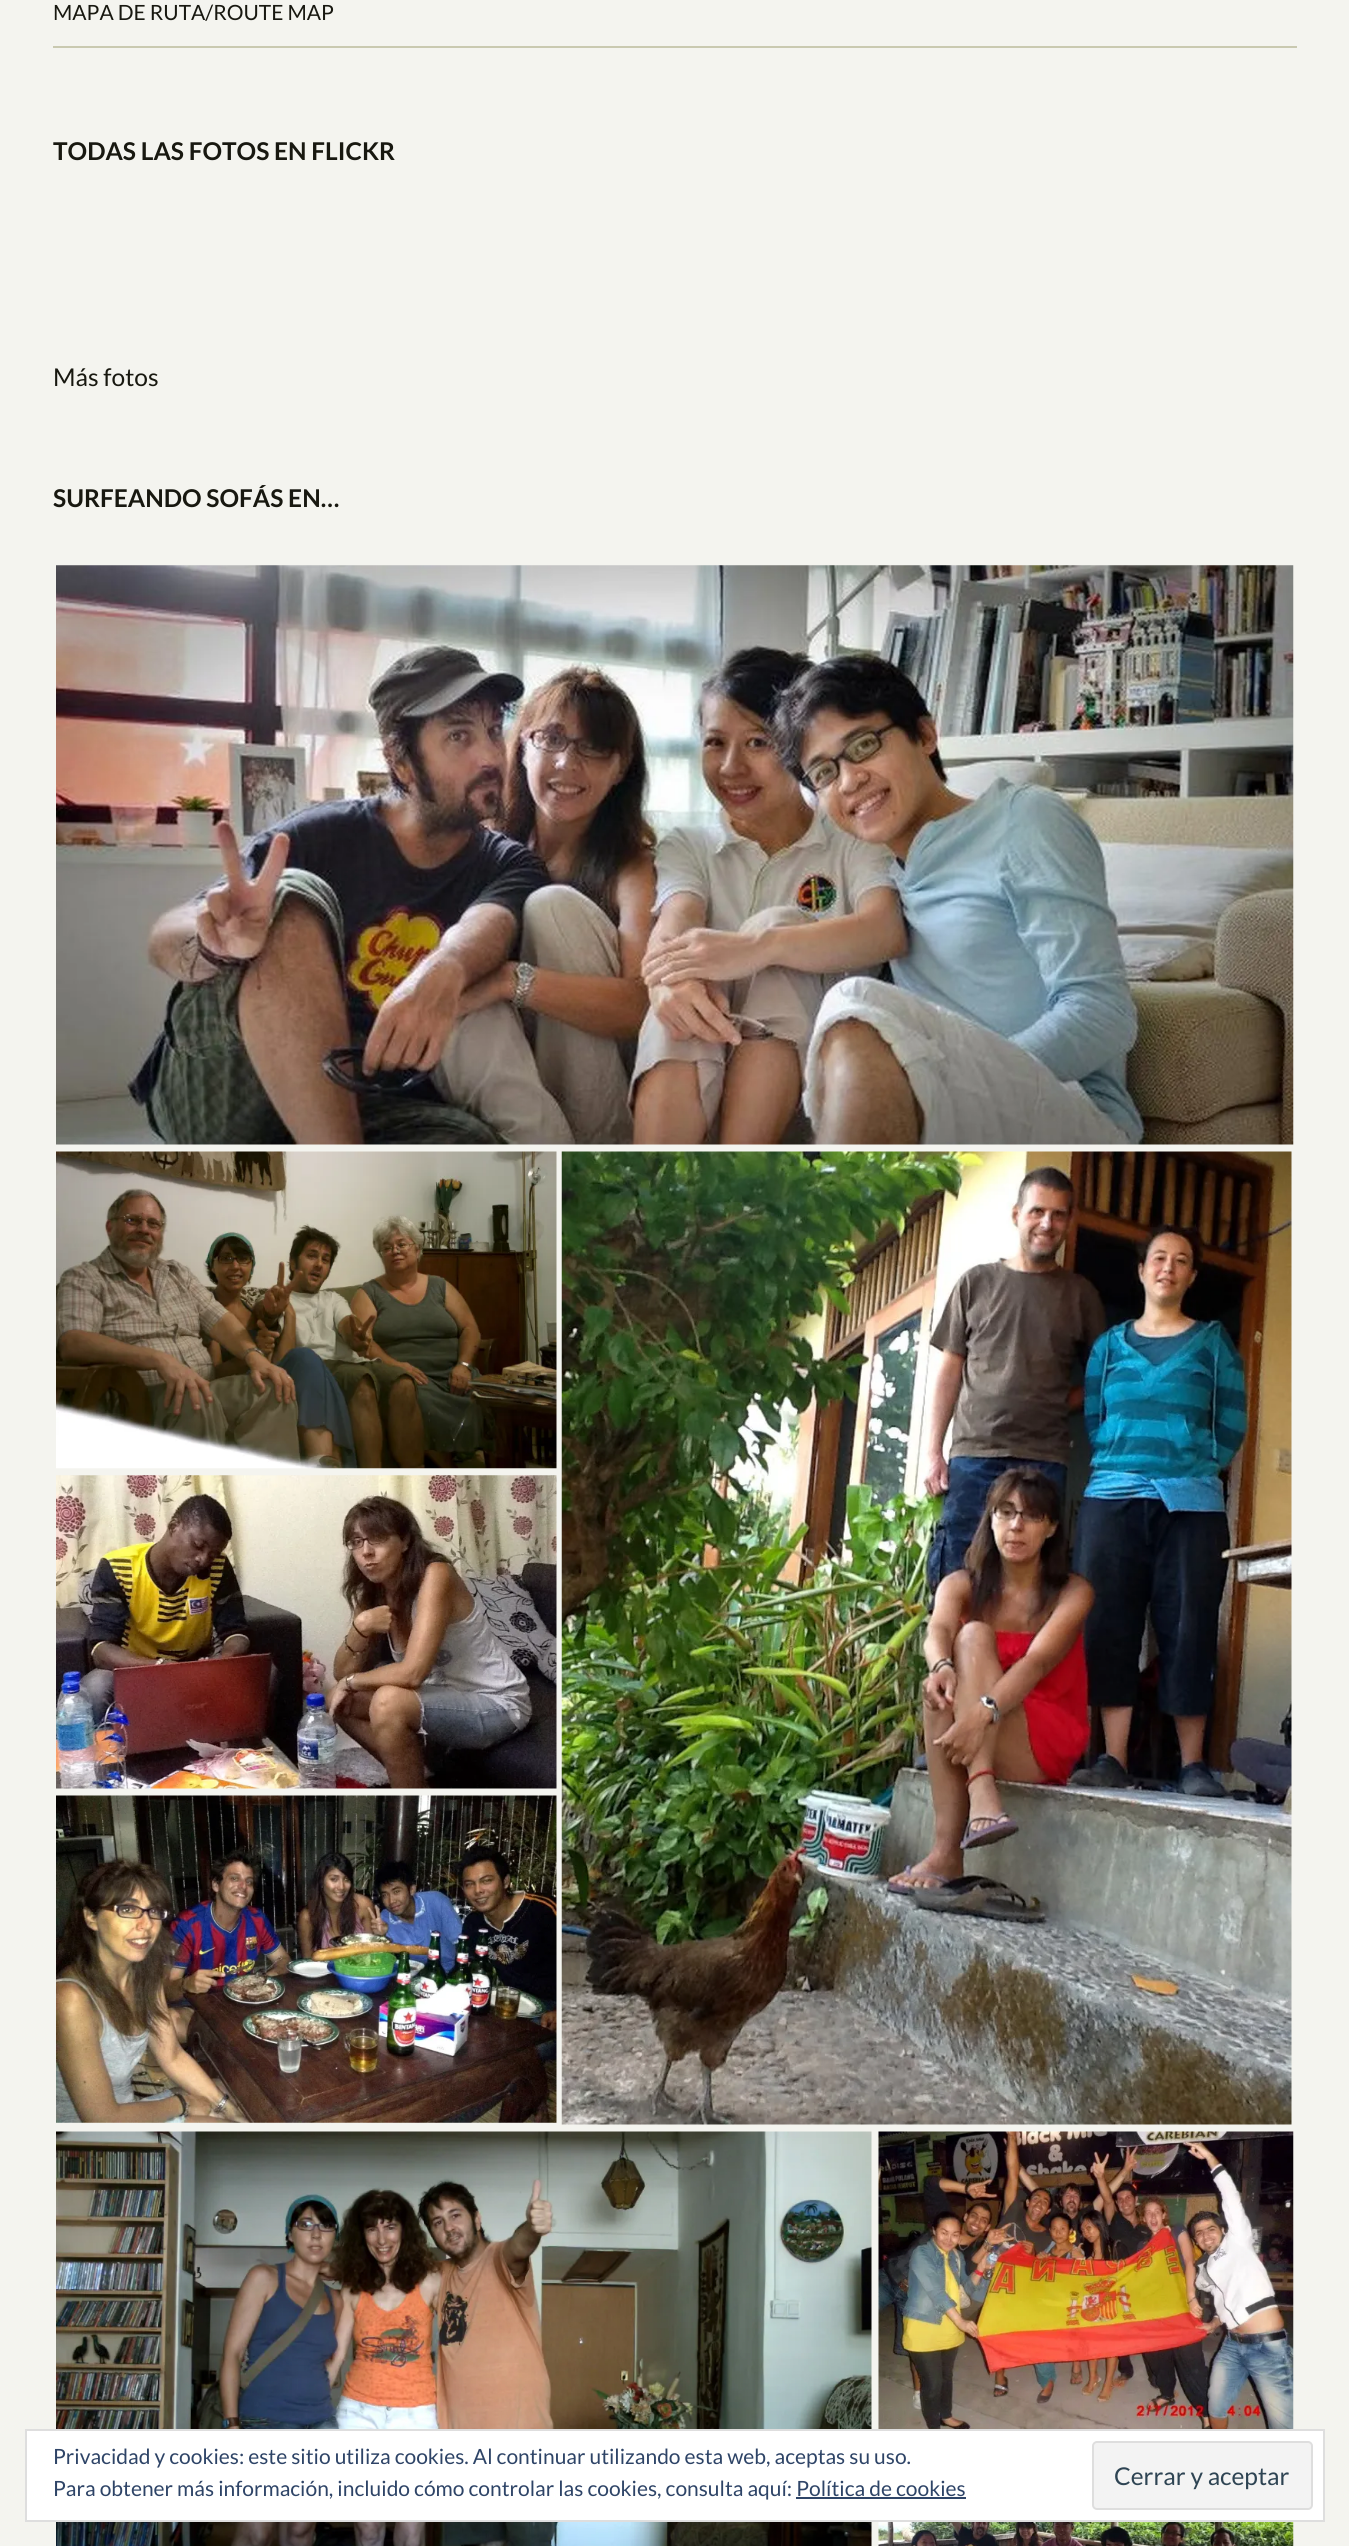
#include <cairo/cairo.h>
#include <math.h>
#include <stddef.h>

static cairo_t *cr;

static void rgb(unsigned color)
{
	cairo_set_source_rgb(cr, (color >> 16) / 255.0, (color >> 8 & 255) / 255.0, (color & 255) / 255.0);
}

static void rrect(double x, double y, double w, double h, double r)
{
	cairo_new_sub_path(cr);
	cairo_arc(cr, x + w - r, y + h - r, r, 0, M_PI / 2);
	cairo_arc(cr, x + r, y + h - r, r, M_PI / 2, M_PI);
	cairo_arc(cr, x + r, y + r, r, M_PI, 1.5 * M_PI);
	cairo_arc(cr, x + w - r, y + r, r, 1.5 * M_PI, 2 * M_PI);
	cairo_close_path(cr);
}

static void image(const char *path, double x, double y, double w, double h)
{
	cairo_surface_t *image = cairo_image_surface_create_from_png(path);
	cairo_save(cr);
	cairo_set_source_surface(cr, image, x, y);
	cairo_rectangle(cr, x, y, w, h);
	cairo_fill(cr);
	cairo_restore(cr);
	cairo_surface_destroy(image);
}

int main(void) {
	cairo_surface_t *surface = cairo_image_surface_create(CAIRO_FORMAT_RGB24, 1349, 2546);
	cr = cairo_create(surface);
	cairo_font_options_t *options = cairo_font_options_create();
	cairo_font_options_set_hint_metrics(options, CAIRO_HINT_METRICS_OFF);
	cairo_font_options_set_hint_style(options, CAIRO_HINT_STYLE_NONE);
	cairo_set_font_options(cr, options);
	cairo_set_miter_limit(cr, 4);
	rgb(0xf4f4ef);
	cairo_paint(cr);
	rgb(0xc9c9b0);
	cairo_rectangle(cr, 53, 46, 1244, 2);
	cairo_fill(cr);
	image("img/1.png", 56, 565, 1238, 580);
	image("img/2.png", 56, 1151, 501, 318);
	image("img/3.png", 56, 1475, 501, 314);
	image("img/4.png", 56, 1795, 501, 328);
	image("img/5.png", 561, 1151, 731, 974);
	image("img/6.png", 56, 2131, 816, 415);
	image("img/7.png", 878, 2131, 416, 298);
	image("img/8.png", 878, 2522, 416, 24);
	rgb(0xffffff);
	cairo_rectangle(cr, 26, 2430, 1298, 91);
	cairo_fill_preserve(cr);
	rgb(0xdedede);
	cairo_stroke(cr);
	rgb(0xf3f3f3);
	rrect(1093, 2442, 219, 67, 4);
	cairo_fill_preserve(cr);
	rgb(0xdedede);
	cairo_stroke(cr);
	rgb(0x2e4467);
	cairo_rectangle(cr, 796, 2497, 170, 2);
	cairo_fill(cr);
	cairo_select_font_face(cr, "Lato", CAIRO_FONT_SLANT_NORMAL, CAIRO_FONT_WEIGHT_NORMAL);
	cairo_set_font_size(cr, 21);
	rgb(0x181810);
	cairo_move_to(cr, 53, 20);
	cairo_show_text(cr, "MAPA DE RUTA/ROUTE MAP");
	cairo_select_font_face(cr, "Lato", CAIRO_FONT_SLANT_NORMAL, CAIRO_FONT_WEIGHT_BOLD);
	cairo_set_font_size(cr, 24.5);
	cairo_move_to(cr, 53, 160);
	cairo_show_text(cr, "TODAS LAS FOTOS EN FLICKR");
	cairo_select_font_face(cr, "Lato", CAIRO_FONT_SLANT_NORMAL, CAIRO_FONT_WEIGHT_NORMAL);
	cairo_move_to(cr, 53, 386);
	cairo_show_text(cr, "Más fotos");
	cairo_select_font_face(cr, "Lato", CAIRO_FONT_SLANT_NORMAL, CAIRO_FONT_WEIGHT_BOLD);
	cairo_move_to(cr, 53, 507);
	cairo_show_text(cr, "SURFEANDO SOFÁS EN…");
	cairo_select_font_face(cr, "Lato", CAIRO_FONT_SLANT_NORMAL, CAIRO_FONT_WEIGHT_NORMAL);
	cairo_set_font_size(cr, 21);
	rgb(0x2e4467);
	cairo_move_to(cr, 53, 2464);
	cairo_show_text(cr, "Privacidad y cookies: este sitio utiliza cookies. Al continuar utilizando esta web, aceptas su uso.");
	cairo_move_to(cr, 53, 2496);
	cairo_show_text(cr, "Para obtener más información, incluido cómo controlar las cookies, consulta aquí: Política de cookies");
	cairo_set_font_size(cr, 24.5);
	rgb(0x2e4453);
	cairo_move_to(cr, 1114, 2485);
	cairo_show_text(cr, "Cerrar y aceptar");
	cairo_surface_write_to_png(surface, "page.png");
	cairo_font_options_destroy(options);
	cairo_destroy(cr);
	cairo_surface_destroy(surface);
	return 0;
}
